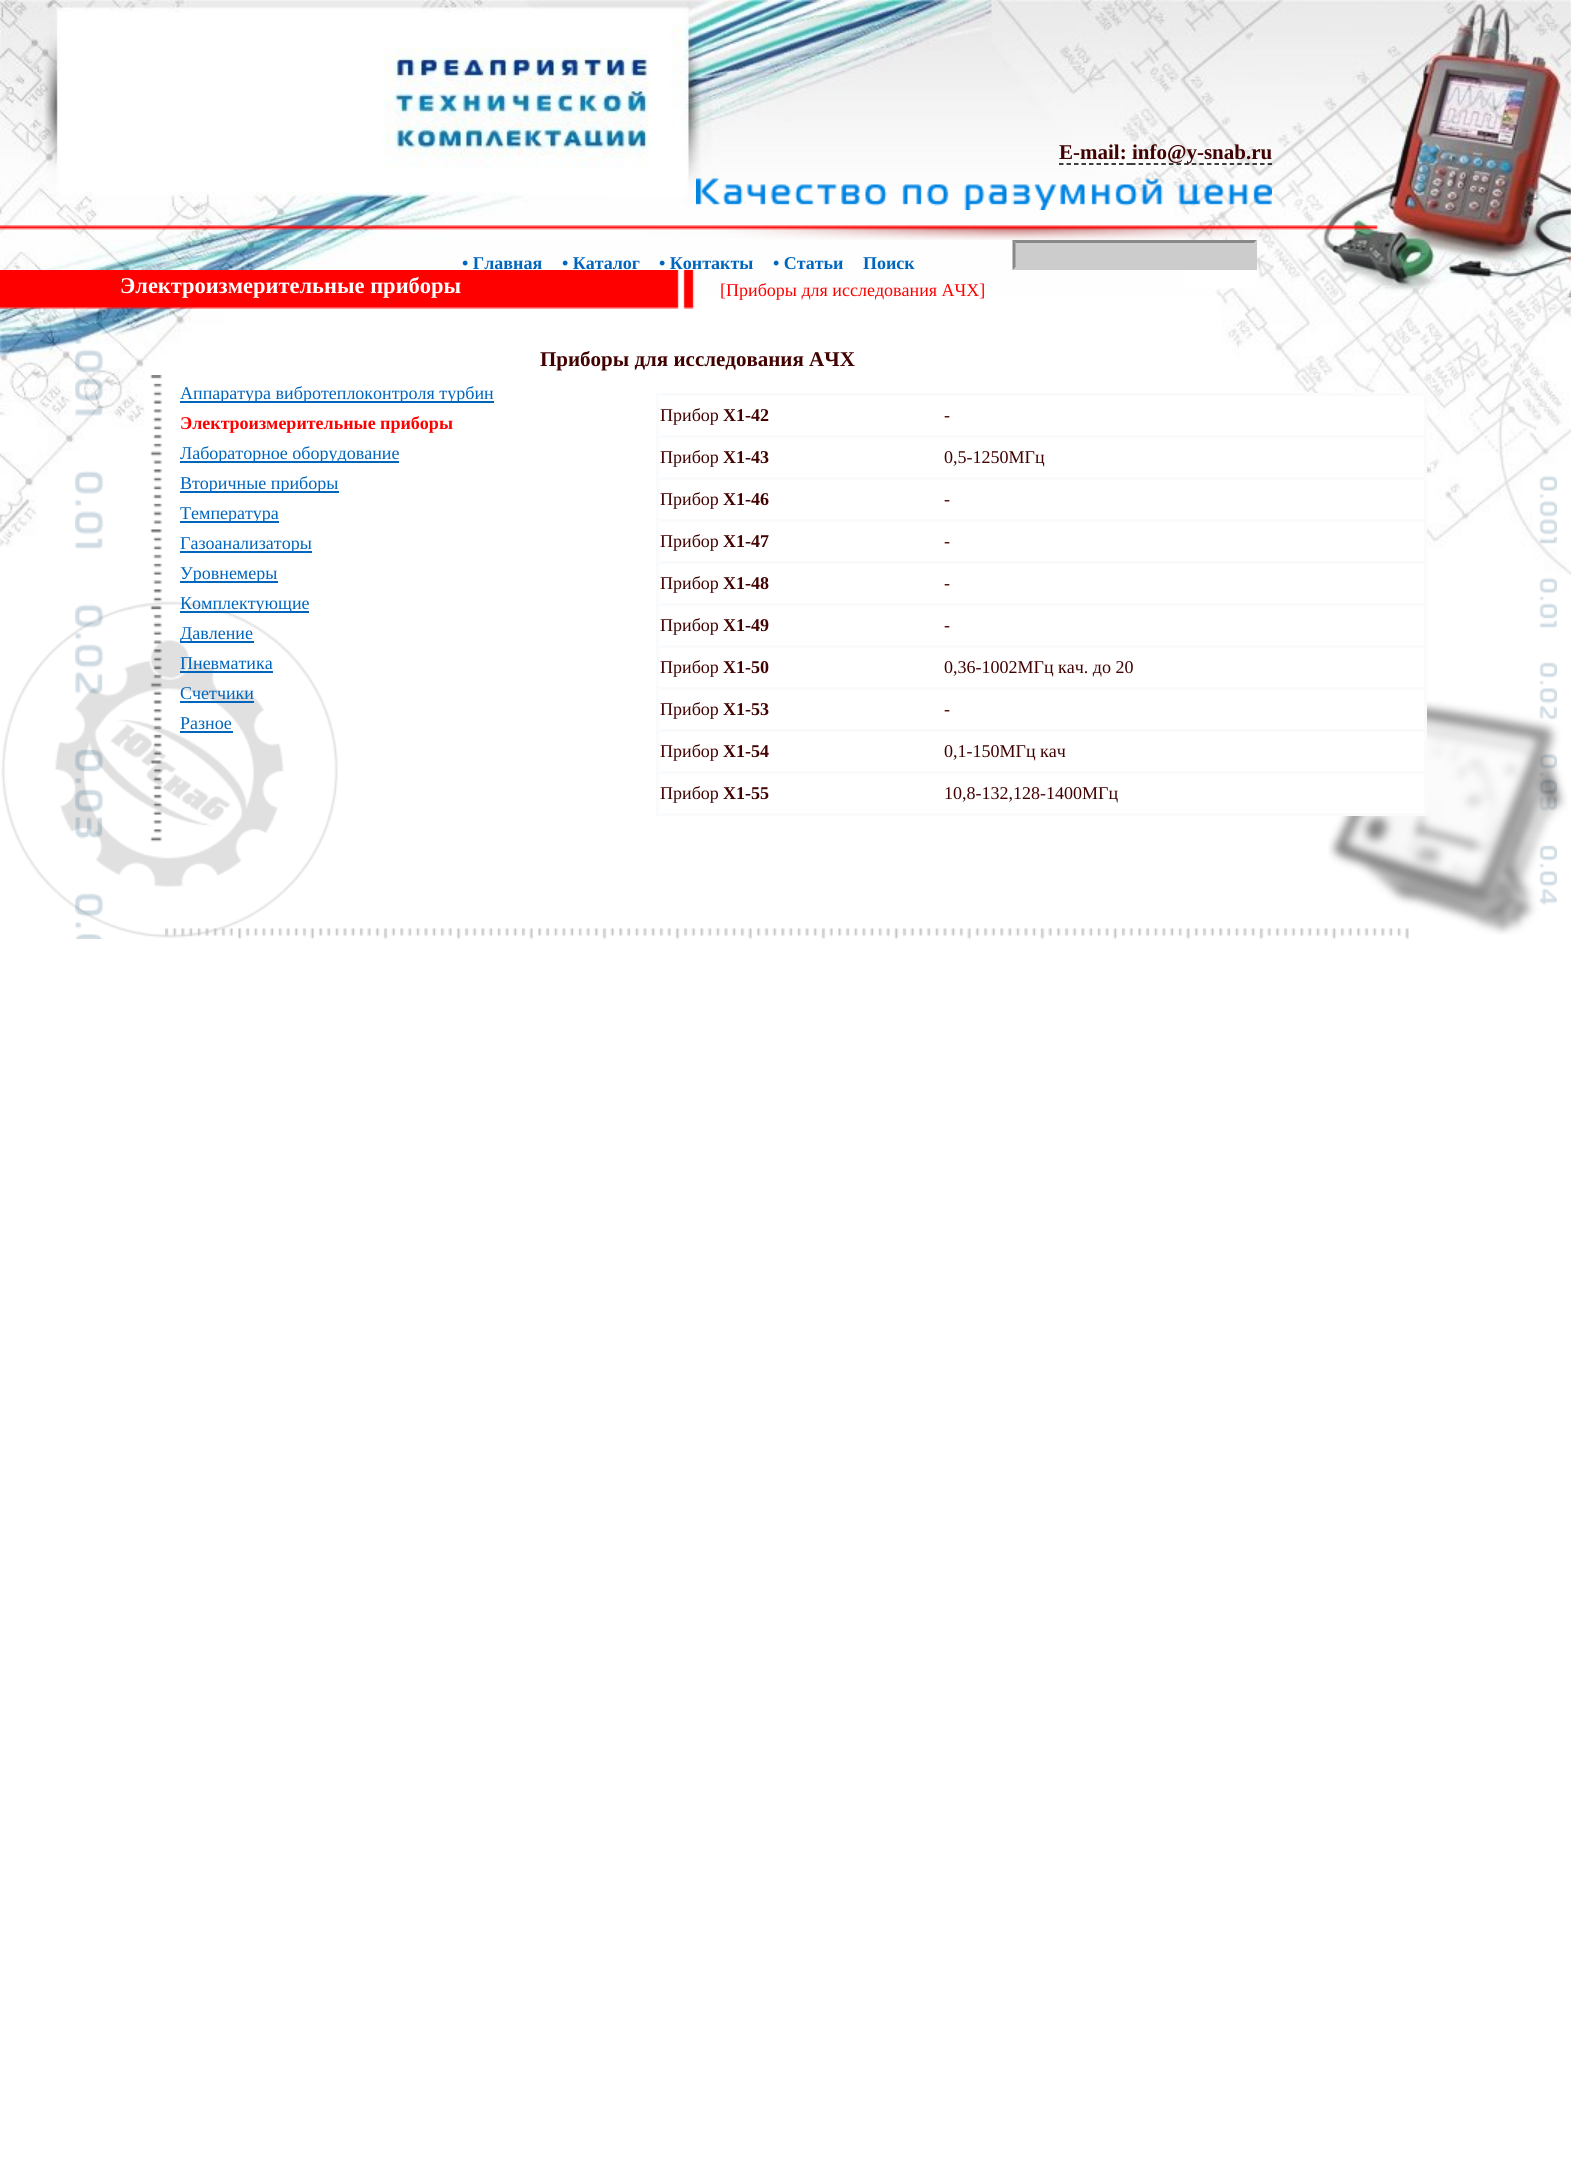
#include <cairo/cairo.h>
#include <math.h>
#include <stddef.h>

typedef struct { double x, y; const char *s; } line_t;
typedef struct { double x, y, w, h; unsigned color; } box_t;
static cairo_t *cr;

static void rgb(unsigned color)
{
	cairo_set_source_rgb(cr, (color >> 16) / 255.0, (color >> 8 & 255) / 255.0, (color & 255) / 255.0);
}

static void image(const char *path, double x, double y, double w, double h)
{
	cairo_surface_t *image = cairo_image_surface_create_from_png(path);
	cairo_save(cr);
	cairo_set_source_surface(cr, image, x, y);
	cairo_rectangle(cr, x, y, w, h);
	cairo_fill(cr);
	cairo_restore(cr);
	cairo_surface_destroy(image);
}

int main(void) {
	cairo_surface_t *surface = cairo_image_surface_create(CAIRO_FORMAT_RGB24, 1571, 2170);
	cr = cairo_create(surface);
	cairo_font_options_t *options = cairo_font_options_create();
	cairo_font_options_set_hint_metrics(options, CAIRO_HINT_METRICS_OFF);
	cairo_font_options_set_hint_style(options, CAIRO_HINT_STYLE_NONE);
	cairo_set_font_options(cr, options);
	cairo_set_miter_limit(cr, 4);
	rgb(0xffffff);
	cairo_paint(cr);
	image("img/1.png", 0, 0, 1044, 296);
	image("img/9.png", 1221, 295, 350, 280);
	image("img/2.png", 991, 0, 580, 296);
	cairo_new_path(cr);
	cairo_move_to(cr, 1059, 164);
	cairo_line_to(cr, 1131, 164);
	rgb(0x000000);
	cairo_set_line_width(cr, 1.5);
	cairo_set_dash(cr, (double[]){4.5, 3}, 2, 0);
	cairo_stroke(cr);
	cairo_new_path(cr);
	cairo_move_to(cr, 1131, 164);
	cairo_line_to(cr, 1272, 164);
	cairo_set_dash(cr, (double[]){4.5, 3.09}, 2, 0);
	cairo_stroke(cr);
	image("img/3.png", 696, 178, 576, 32);
	image("img/4.png", 0, 225, 1379, 15);
	rgb(0xffffff);
	cairo_rectangle(cr, 1184, 240, 73, 48);
	cairo_fill(cr);
	rgb(0xcccccc);
	cairo_rectangle(cr, 1013, 240, 244, 30);
	cairo_fill(cr);
	rgb(0x888888);
	cairo_new_path(cr);
	cairo_move_to(cr, 1012, 240);
	cairo_line_to(cr, 1257, 240);
	cairo_line_to(cr, 1254, 243);
	cairo_line_to(cr, 1016, 243);
	cairo_close_path(cr);
	cairo_fill(cr);
	rgb(0xcccccc);
	cairo_new_path(cr);
	cairo_move_to(cr, 1257, 240);
	cairo_line_to(cr, 1257, 270);
	cairo_line_to(cr, 1254, 267);
	cairo_line_to(cr, 1254, 243);
	cairo_close_path(cr);
	cairo_fill(cr);
	cairo_new_path(cr);
	cairo_move_to(cr, 1257, 270);
	cairo_line_to(cr, 1012, 270);
	cairo_line_to(cr, 1016, 267);
	cairo_line_to(cr, 1254, 267);
	cairo_close_path(cr);
	cairo_fill(cr);
	rgb(0x888888);
	cairo_new_path(cr);
	cairo_move_to(cr, 1012.5, 270);
	cairo_line_to(cr, 1012.5, 240);
	cairo_line_to(cr, 1015.5, 243);
	cairo_line_to(cr, 1015.5, 267);
	cairo_close_path(cr);
	cairo_fill(cr);
	image("img/8.png", 0, 307, 225, 240);
	image("img/5.png", 0, 270, 695, 39);
	image("img/7.png", 1, 601, 337, 337);
	image("img/6.png", 150, 375, 12, 467);
	{
		static const box_t items[] = {
			{180, 401, 314, 2, 0x0065bd},
			{180, 461, 219, 2, 0x0065bd},
			{180, 491, 159, 2, 0x0065bd},
			{180, 521, 99, 2, 0x0065bd},
			{180, 551, 132, 2, 0x0065bd},
			{180, 581, 98, 2, 0x0065bd},
			{180, 611, 129, 2, 0x0065bd},
			{180, 641, 74, 2, 0x0065bd},
			{180, 671, 93, 2, 0x0065bd},
			{180, 701, 74, 2, 0x0065bd},
			{180, 731, 53, 2, 0x0065bd},
		};
		for (size_t i = 0; i < sizeof items / sizeof *items; i++) {
			rgb(items[i].color);
			cairo_rectangle(cr, items[i].x, items[i].y, items[i].w, items[i].h);
			cairo_fill(cr);
		}
	}
	image("img/10.png", 75, 310, 29, 629);
	image("img/11.png", 1539, 475, 18, 430);
	image("img/12.png", 1328, 701, 240, 234);
	{
		static const box_t items[] = {
			{656, 393, 771, 423, 0xf9fbfd},
			{659, 396, 765, 39, 0xffffff},
			{659, 438, 765, 39, 0xffffff},
			{659, 480, 765, 39, 0xffffff},
			{659, 522, 765, 39, 0xffffff},
			{659, 564, 765, 39, 0xffffff},
			{659, 606, 765, 39, 0xffffff},
			{659, 648, 765, 39, 0xffffff},
			{659, 690, 765, 39, 0xffffff},
			{659, 732, 765, 39, 0xffffff},
			{659, 774, 765, 39, 0xffffff},
		};
		for (size_t i = 0; i < sizeof items / sizeof *items; i++) {
			rgb(items[i].color);
			cairo_rectangle(cr, items[i].x, items[i].y, items[i].w, items[i].h);
			cairo_fill(cr);
		}
	}
	image("img/13.png", 165, 928, 1244, 11);
	cairo_select_font_face(cr, "Liberation Serif", CAIRO_FONT_SLANT_NORMAL, CAIRO_FONT_WEIGHT_BOLD);
	cairo_set_font_size(cr, 21);
	rgb(0x410101);
	cairo_move_to(cr, 1059, 159);
	cairo_show_text(cr, "E-mail: info@y-snab.ru");
	cairo_set_font_size(cr, 18);
	rgb(0x0065bd);
	{
		static const line_t items[] = {
			{462, 269, "• Главная"},
			{562, 269, "• Каталог"},
			{659, 269, "• Контакты"},
			{773, 269, "• Статьи"},
			{863, 269, "Поиск"},
		};
		for (size_t i = 0; i < sizeof items / sizeof *items; i++) {
			cairo_move_to(cr, items[i].x, items[i].y);
			cairo_show_text(cr, items[i].s);
		}
	}
	cairo_set_font_size(cr, 22.5);
	rgb(0xffffff);
	cairo_move_to(cr, 120, 293);
	cairo_show_text(cr, "Электроизмерительные приборы");
	cairo_select_font_face(cr, "Liberation Serif", CAIRO_FONT_SLANT_NORMAL, CAIRO_FONT_WEIGHT_NORMAL);
	cairo_set_font_size(cr, 18);
	rgb(0xff0000);
	cairo_move_to(cr, 720, 296);
	cairo_show_text(cr, "[Приборы для исследования АЧХ]");
	rgb(0x0065bd);
	cairo_move_to(cr, 180, 399);
	cairo_show_text(cr, "Аппаратура вибротеплоконтроля турбин");
	cairo_select_font_face(cr, "Liberation Serif", CAIRO_FONT_SLANT_NORMAL, CAIRO_FONT_WEIGHT_BOLD);
	rgb(0xff0000);
	cairo_move_to(cr, 180, 429);
	cairo_show_text(cr, "Электроизмерительные приборы");
	cairo_select_font_face(cr, "Liberation Serif", CAIRO_FONT_SLANT_NORMAL, CAIRO_FONT_WEIGHT_NORMAL);
	rgb(0x0065bd);
	{
		static const line_t items[] = {
			{180, 459, "Лабораторное оборудование"},
			{180, 489, "Вторичные приборы"},
			{180, 519, "Температура"},
			{180, 549, "Газоанализаторы"},
			{180, 579, "Уровнемеры"},
			{180, 609, "Комплектующие"},
			{180, 639, "Давление"},
			{180, 669, "Пневматика"},
			{180, 699, "Счетчики"},
			{180, 729, "Разное"},
		};
		for (size_t i = 0; i < sizeof items / sizeof *items; i++) {
			cairo_move_to(cr, items[i].x, items[i].y);
			cairo_show_text(cr, items[i].s);
		}
	}
	cairo_select_font_face(cr, "Liberation Serif", CAIRO_FONT_SLANT_NORMAL, CAIRO_FONT_WEIGHT_BOLD);
	cairo_set_font_size(cr, 21);
	rgb(0x410101);
	cairo_move_to(cr, 540, 366);
	cairo_show_text(cr, "Приборы для исследования АЧХ");
	cairo_select_font_face(cr, "Liberation Serif", CAIRO_FONT_SLANT_NORMAL, CAIRO_FONT_WEIGHT_NORMAL);
	cairo_set_font_size(cr, 18);
	cairo_move_to(cr, 660, 421);
	cairo_show_text(cr, "Прибор");
	cairo_select_font_face(cr, "Liberation Serif", CAIRO_FONT_SLANT_NORMAL, CAIRO_FONT_WEIGHT_BOLD);
	cairo_move_to(cr, 723, 421);
	cairo_show_text(cr, "Х1-42");
	cairo_select_font_face(cr, "Liberation Serif", CAIRO_FONT_SLANT_NORMAL, CAIRO_FONT_WEIGHT_NORMAL);
	cairo_move_to(cr, 944, 421);
	cairo_show_text(cr, "-");
	cairo_move_to(cr, 660, 463);
	cairo_show_text(cr, "Прибор");
	cairo_select_font_face(cr, "Liberation Serif", CAIRO_FONT_SLANT_NORMAL, CAIRO_FONT_WEIGHT_BOLD);
	cairo_move_to(cr, 723, 463);
	cairo_show_text(cr, "Х1-43");
	cairo_select_font_face(cr, "Liberation Serif", CAIRO_FONT_SLANT_NORMAL, CAIRO_FONT_WEIGHT_NORMAL);
	cairo_move_to(cr, 944, 463);
	cairo_show_text(cr, "0,5-1250МГц");
	cairo_move_to(cr, 660, 505);
	cairo_show_text(cr, "Прибор");
	cairo_select_font_face(cr, "Liberation Serif", CAIRO_FONT_SLANT_NORMAL, CAIRO_FONT_WEIGHT_BOLD);
	cairo_move_to(cr, 723, 505);
	cairo_show_text(cr, "Х1-46");
	cairo_select_font_face(cr, "Liberation Serif", CAIRO_FONT_SLANT_NORMAL, CAIRO_FONT_WEIGHT_NORMAL);
	cairo_move_to(cr, 944, 505);
	cairo_show_text(cr, "-");
	cairo_move_to(cr, 660, 547);
	cairo_show_text(cr, "Прибор");
	cairo_select_font_face(cr, "Liberation Serif", CAIRO_FONT_SLANT_NORMAL, CAIRO_FONT_WEIGHT_BOLD);
	cairo_move_to(cr, 723, 547);
	cairo_show_text(cr, "Х1-47");
	cairo_select_font_face(cr, "Liberation Serif", CAIRO_FONT_SLANT_NORMAL, CAIRO_FONT_WEIGHT_NORMAL);
	cairo_move_to(cr, 944, 547);
	cairo_show_text(cr, "-");
	cairo_move_to(cr, 660, 589);
	cairo_show_text(cr, "Прибор");
	cairo_select_font_face(cr, "Liberation Serif", CAIRO_FONT_SLANT_NORMAL, CAIRO_FONT_WEIGHT_BOLD);
	cairo_move_to(cr, 723, 589);
	cairo_show_text(cr, "Х1-48");
	cairo_select_font_face(cr, "Liberation Serif", CAIRO_FONT_SLANT_NORMAL, CAIRO_FONT_WEIGHT_NORMAL);
	cairo_move_to(cr, 944, 589);
	cairo_show_text(cr, "-");
	cairo_move_to(cr, 660, 631);
	cairo_show_text(cr, "Прибор");
	cairo_select_font_face(cr, "Liberation Serif", CAIRO_FONT_SLANT_NORMAL, CAIRO_FONT_WEIGHT_BOLD);
	cairo_move_to(cr, 723, 631);
	cairo_show_text(cr, "Х1-49");
	cairo_select_font_face(cr, "Liberation Serif", CAIRO_FONT_SLANT_NORMAL, CAIRO_FONT_WEIGHT_NORMAL);
	cairo_move_to(cr, 944, 631);
	cairo_show_text(cr, "-");
	cairo_move_to(cr, 660, 673);
	cairo_show_text(cr, "Прибор");
	cairo_select_font_face(cr, "Liberation Serif", CAIRO_FONT_SLANT_NORMAL, CAIRO_FONT_WEIGHT_BOLD);
	cairo_move_to(cr, 723, 673);
	cairo_show_text(cr, "Х1-50");
	cairo_select_font_face(cr, "Liberation Serif", CAIRO_FONT_SLANT_NORMAL, CAIRO_FONT_WEIGHT_NORMAL);
	cairo_move_to(cr, 944, 673);
	cairo_show_text(cr, "0,36-1002МГц кач. до 20");
	cairo_move_to(cr, 660, 715);
	cairo_show_text(cr, "Прибор");
	cairo_select_font_face(cr, "Liberation Serif", CAIRO_FONT_SLANT_NORMAL, CAIRO_FONT_WEIGHT_BOLD);
	cairo_move_to(cr, 723, 715);
	cairo_show_text(cr, "Х1-53");
	cairo_select_font_face(cr, "Liberation Serif", CAIRO_FONT_SLANT_NORMAL, CAIRO_FONT_WEIGHT_NORMAL);
	cairo_move_to(cr, 944, 715);
	cairo_show_text(cr, "-");
	cairo_move_to(cr, 660, 757);
	cairo_show_text(cr, "Прибор");
	cairo_select_font_face(cr, "Liberation Serif", CAIRO_FONT_SLANT_NORMAL, CAIRO_FONT_WEIGHT_BOLD);
	cairo_move_to(cr, 723, 757);
	cairo_show_text(cr, "Х1-54");
	cairo_select_font_face(cr, "Liberation Serif", CAIRO_FONT_SLANT_NORMAL, CAIRO_FONT_WEIGHT_NORMAL);
	cairo_move_to(cr, 944, 757);
	cairo_show_text(cr, "0,1-150МГц кач");
	cairo_move_to(cr, 660, 799);
	cairo_show_text(cr, "Прибор");
	cairo_select_font_face(cr, "Liberation Serif", CAIRO_FONT_SLANT_NORMAL, CAIRO_FONT_WEIGHT_BOLD);
	cairo_move_to(cr, 723, 799);
	cairo_show_text(cr, "Х1-55");
	cairo_select_font_face(cr, "Liberation Serif", CAIRO_FONT_SLANT_NORMAL, CAIRO_FONT_WEIGHT_NORMAL);
	cairo_move_to(cr, 944, 799);
	cairo_show_text(cr, "10,8-132,128-1400МГц");
	cairo_surface_write_to_png(surface, "page.png");
	cairo_font_options_destroy(options);
	cairo_destroy(cr);
	cairo_surface_destroy(surface);
	return 0;
}
